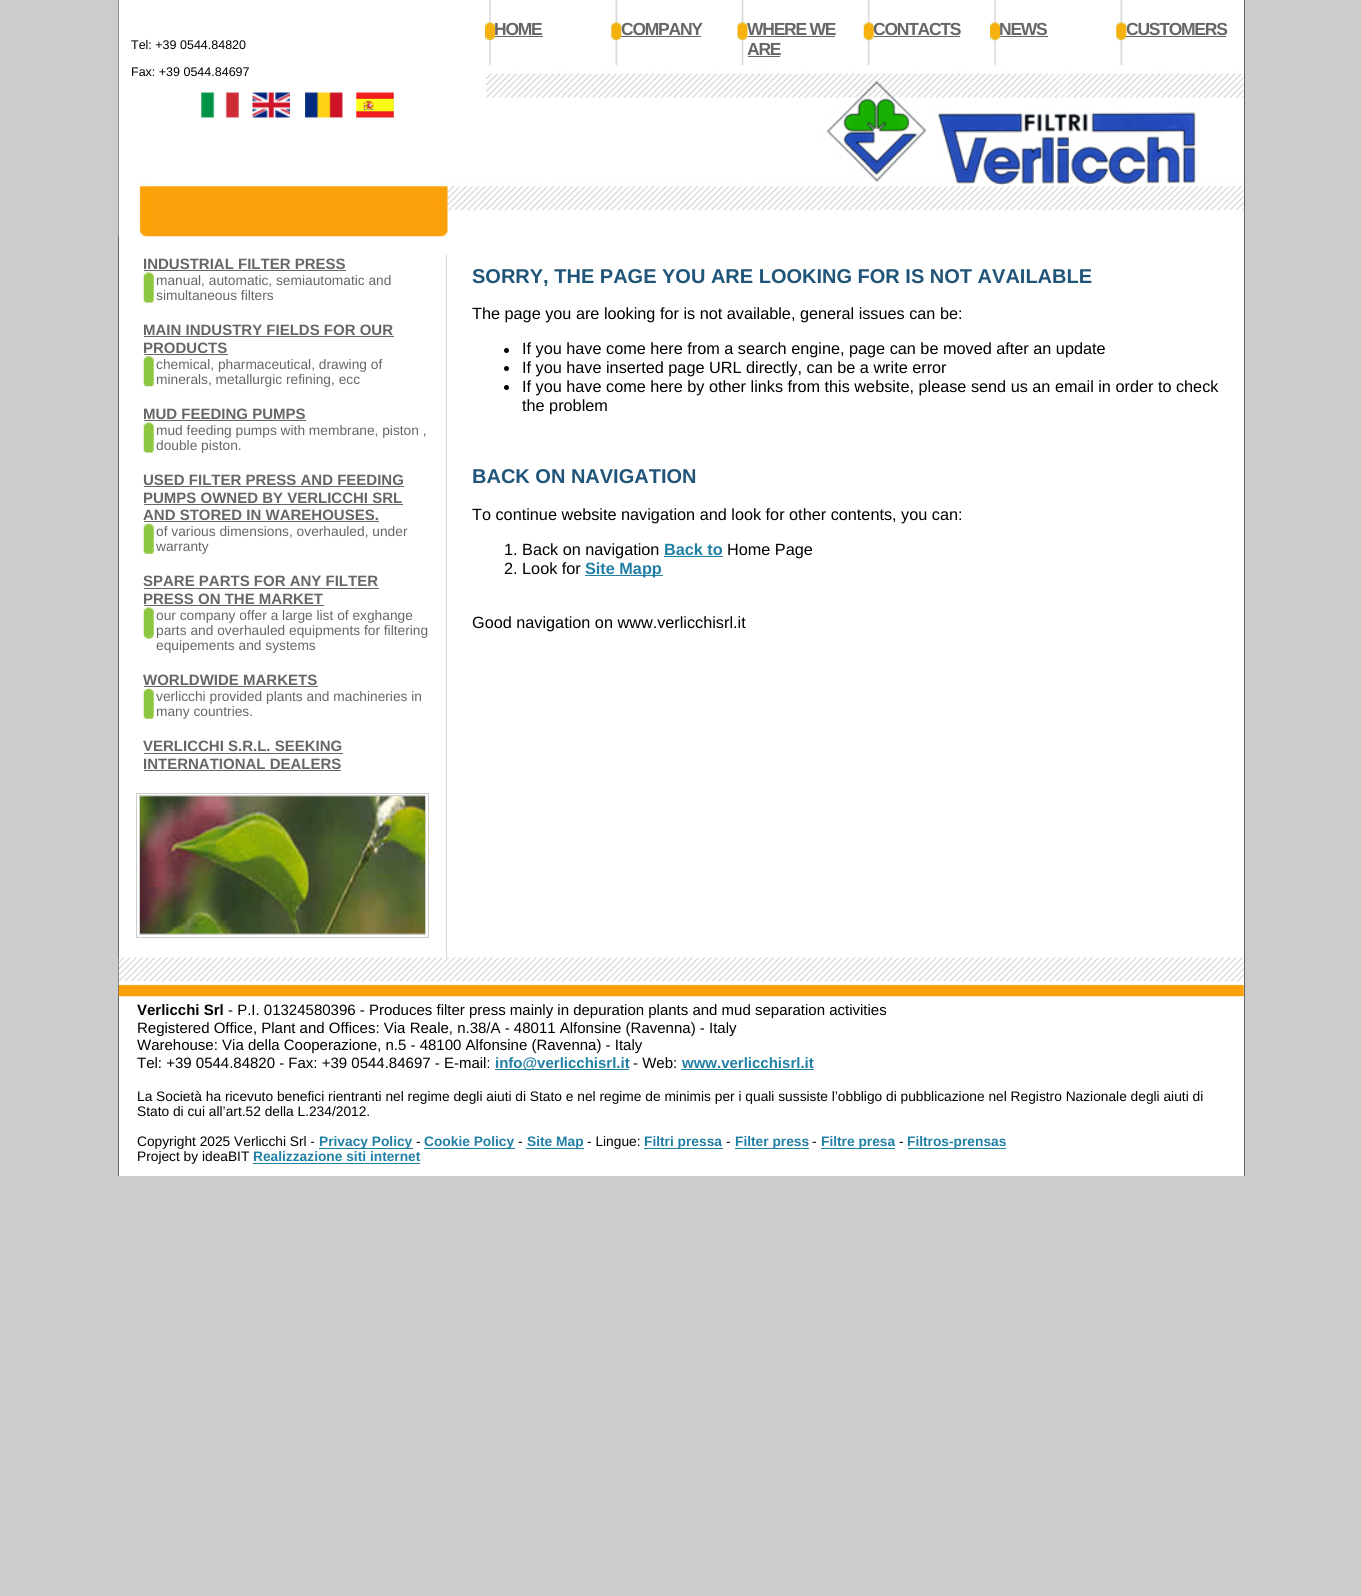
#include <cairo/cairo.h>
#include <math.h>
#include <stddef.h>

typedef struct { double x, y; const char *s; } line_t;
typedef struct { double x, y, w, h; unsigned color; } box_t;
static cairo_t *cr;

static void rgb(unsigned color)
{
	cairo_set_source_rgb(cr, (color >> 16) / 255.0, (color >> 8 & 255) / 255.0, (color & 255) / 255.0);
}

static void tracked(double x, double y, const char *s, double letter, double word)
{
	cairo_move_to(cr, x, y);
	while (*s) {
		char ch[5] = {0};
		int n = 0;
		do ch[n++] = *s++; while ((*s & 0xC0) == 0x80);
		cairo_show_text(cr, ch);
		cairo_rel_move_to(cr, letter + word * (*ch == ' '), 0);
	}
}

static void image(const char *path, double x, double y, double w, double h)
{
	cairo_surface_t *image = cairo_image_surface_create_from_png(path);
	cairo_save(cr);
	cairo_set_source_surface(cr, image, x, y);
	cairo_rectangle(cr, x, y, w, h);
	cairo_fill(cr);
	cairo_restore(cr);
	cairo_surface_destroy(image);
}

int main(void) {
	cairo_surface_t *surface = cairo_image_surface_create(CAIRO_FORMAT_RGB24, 1361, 1596);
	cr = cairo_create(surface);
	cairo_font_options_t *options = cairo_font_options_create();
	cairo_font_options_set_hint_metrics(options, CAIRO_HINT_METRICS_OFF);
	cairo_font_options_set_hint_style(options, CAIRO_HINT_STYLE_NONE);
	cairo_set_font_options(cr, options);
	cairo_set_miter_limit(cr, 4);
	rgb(0xcccccc);
	cairo_paint(cr);
	{
		static const box_t items[] = {
			{119, 0, 1125, 1176, 0xffffff},
			{1244, 0, 1, 1176, 0x666666},
			{118, 0, 1, 1176, 0x666666},
		};
		for (size_t i = 0; i < sizeof items / sizeof *items; i++) {
			rgb(items[i].color);
			cairo_rectangle(cr, items[i].x, items[i].y, items[i].w, items[i].h);
			cairo_fill(cr);
		}
	}
	image("img/1.png", 118, 0, 1126, 237);
	image("img/2.png", 485, 0, 10, 65);
	cairo_rectangle(cr, 495, 36, 48, 1);
	cairo_fill(cr);
	image("img/3.png", 611, 0, 11, 65);
	cairo_rectangle(cr, 621, 36, 80, 1);
	cairo_fill(cr);
	image("img/4.png", 737, 0, 11, 65);
	cairo_rectangle(cr, 748, 36, 87, 1);
	cairo_fill(cr);
	cairo_rectangle(cr, 748, 56, 32, 1);
	cairo_fill(cr);
	image("img/5.png", 863, 0, 11, 65);
	cairo_rectangle(cr, 874, 36, 86, 1);
	cairo_fill(cr);
	image("img/2.png", 990, 0, 10, 65);
	cairo_rectangle(cr, 1000, 36, 48, 1);
	cairo_fill(cr);
	image("img/3.png", 1116, 0, 11, 65);
	cairo_rectangle(cr, 1126, 36, 100, 1);
	cairo_fill(cr);
	image("img/6.png", 201, 92, 38, 26);
	image("img/7.png", 252, 92, 38, 26);
	image("img/8.png", 305, 92, 38, 26);
	image("img/9.png", 356, 92, 38, 26);
	image("img/15.png", 118, 957, 1126, 40);
	rgb(0xd5d5d5);
	cairo_rectangle(cr, 446, 255, 1, 703);
	cairo_fill(cr);
	rgb(0x666666);
	cairo_rectangle(cr, 144, 270, 202, 1);
	cairo_fill(cr);
	image("img/10.png", 143, 272, 11, 31);
	cairo_rectangle(cr, 144, 336, 250, 1);
	cairo_fill(cr);
	cairo_rectangle(cr, 144, 354, 84, 1);
	cairo_fill(cr);
	image("img/11.png", 143, 356, 11, 31);
	cairo_rectangle(cr, 144, 420, 162, 1);
	cairo_fill(cr);
	image("img/10.png", 143, 422, 11, 31);
	{
		static const box_t items[] = {
			{144, 486, 260, 1, 0x666666},
			{144, 504, 259, 1, 0x666666},
			{144, 521, 235, 1, 0x666666},
		};
		for (size_t i = 0; i < sizeof items / sizeof *items; i++) {
			rgb(items[i].color);
			cairo_rectangle(cr, items[i].x, items[i].y, items[i].w, items[i].h);
			cairo_fill(cr);
		}
	}
	image("img/12.png", 143, 523, 11, 31);
	cairo_rectangle(cr, 144, 588, 235, 1);
	cairo_fill(cr);
	cairo_rectangle(cr, 144, 605, 180, 1);
	cairo_fill(cr);
	image("img/13.png", 143, 607, 11, 32);
	cairo_rectangle(cr, 144, 686, 174, 1);
	cairo_fill(cr);
	image("img/12.png", 143, 688, 11, 31);
	cairo_rectangle(cr, 144, 753, 199, 1);
	cairo_fill(cr);
	cairo_rectangle(cr, 144, 770, 197, 1);
	cairo_fill(cr);
	cairo_rectangle(cr, 136.5, 793.5, 292, 144);
	rgb(0xcccccc);
	cairo_set_line_width(cr, 1);
	cairo_stroke(cr);
	cairo_rectangle(cr, 139.5, 795.5, 286, 139);
	cairo_stroke(cr);
	image("img/14.png", 140, 796, 285, 138);
	rgb(0x000000);
	cairo_arc(cr, 506.5, 350.5, 2.5, 0, 2 * M_PI);
	cairo_fill(cr);
	cairo_arc(cr, 506.5, 368.5, 2.5, 0, 2 * M_PI);
	cairo_fill(cr);
	cairo_arc(cr, 506.5, 387.5, 2.5, 0, 2 * M_PI);
	cairo_fill(cr);
	{
		static const box_t items[] = {
			{664, 556, 59, 1, 0x207fa4},
			{585, 575, 78, 1, 0x207fa4},
			{495, 1069, 134, 1, 0x207fa4},
			{681, 1069, 133, 1, 0x207fa4},
			{319, 1148, 94, 1, 0x207fa4},
			{424, 1148, 91, 1, 0x207fa4},
			{526, 1148, 58, 1, 0x207fa4},
			{644, 1148, 79, 1, 0x207fa4},
			{735, 1148, 74, 1, 0x207fa4},
			{821, 1148, 74, 1, 0x207fa4},
			{908, 1148, 98, 1, 0x207fa4},
			{253, 1163, 167, 1, 0x207fa4},
		};
		for (size_t i = 0; i < sizeof items / sizeof *items; i++) {
			rgb(items[i].color);
			cairo_rectangle(cr, items[i].x, items[i].y, items[i].w, items[i].h);
			cairo_fill(cr);
		}
	}
	cairo_select_font_face(cr, "Liberation Sans", CAIRO_FONT_SLANT_NORMAL, CAIRO_FONT_WEIGHT_NORMAL);
	cairo_set_font_size(cr, 12.5);
	rgb(0x000000);
	cairo_move_to(cr, 131, 49);
	cairo_show_text(cr, "Tel: +39 0544.84820");
	cairo_move_to(cr, 131, 76);
	cairo_show_text(cr, "Fax: +39 0544.84697");
	cairo_select_font_face(cr, "Liberation Sans", CAIRO_FONT_SLANT_NORMAL, CAIRO_FONT_WEIGHT_BOLD);
	cairo_set_font_size(cr, 17.5);
	rgb(0x666666);
	{
		static const line_t items[] = {
			{494, 35, "HOME"},
			{621, 35, "COMPANY"},
			{747, 35, "WHERE WE"},
			{747, 55, "ARE"},
			{873, 35, "CONTACTS"},
			{999, 35, "NEWS"},
			{1126, 35, "CUSTOMERS"},
		};
		for (size_t i = 0; i < sizeof items / sizeof *items; i++) {
			tracked(items[i].x, items[i].y, items[i].s, -1.25, 0);
		}
	}
	cairo_set_font_size(cr, 15);
	cairo_move_to(cr, 143, 269);
	cairo_show_text(cr, "INDUSTRIAL FILTER PRESS");
	cairo_select_font_face(cr, "Liberation Sans", CAIRO_FONT_SLANT_NORMAL, CAIRO_FONT_WEIGHT_NORMAL);
	cairo_set_font_size(cr, 13.75);
	cairo_move_to(cr, 156, 285);
	cairo_show_text(cr, "manual, automatic, semiautomatic and");
	cairo_move_to(cr, 156, 300);
	cairo_show_text(cr, "simultaneous filters");
	cairo_select_font_face(cr, "Liberation Sans", CAIRO_FONT_SLANT_NORMAL, CAIRO_FONT_WEIGHT_BOLD);
	cairo_set_font_size(cr, 15);
	cairo_move_to(cr, 143, 335);
	cairo_show_text(cr, "MAIN INDUSTRY FIELDS FOR OUR");
	cairo_move_to(cr, 143, 353);
	cairo_show_text(cr, "PRODUCTS");
	cairo_select_font_face(cr, "Liberation Sans", CAIRO_FONT_SLANT_NORMAL, CAIRO_FONT_WEIGHT_NORMAL);
	cairo_set_font_size(cr, 13.75);
	cairo_move_to(cr, 156, 369);
	cairo_show_text(cr, "chemical, pharmaceutical, drawing of");
	cairo_move_to(cr, 156, 384);
	cairo_show_text(cr, "minerals, metallurgic refining, ecc");
	cairo_select_font_face(cr, "Liberation Sans", CAIRO_FONT_SLANT_NORMAL, CAIRO_FONT_WEIGHT_BOLD);
	cairo_set_font_size(cr, 15);
	cairo_move_to(cr, 143, 419);
	cairo_show_text(cr, "MUD FEEDING PUMPS");
	cairo_select_font_face(cr, "Liberation Sans", CAIRO_FONT_SLANT_NORMAL, CAIRO_FONT_WEIGHT_NORMAL);
	cairo_set_font_size(cr, 13.75);
	cairo_move_to(cr, 156, 435);
	cairo_show_text(cr, "mud feeding pumps with membrane, piston ,");
	cairo_move_to(cr, 156, 450);
	cairo_show_text(cr, "double piston.");
	cairo_select_font_face(cr, "Liberation Sans", CAIRO_FONT_SLANT_NORMAL, CAIRO_FONT_WEIGHT_BOLD);
	cairo_set_font_size(cr, 15);
	{
		static const line_t items[] = {
			{143, 485, "USED FILTER PRESS AND FEEDING"},
			{143, 503, "PUMPS OWNED BY VERLICCHI SRL"},
			{143, 520, "AND STORED IN WAREHOUSES."},
		};
		for (size_t i = 0; i < sizeof items / sizeof *items; i++) {
			cairo_move_to(cr, items[i].x, items[i].y);
			cairo_show_text(cr, items[i].s);
		}
	}
	cairo_select_font_face(cr, "Liberation Sans", CAIRO_FONT_SLANT_NORMAL, CAIRO_FONT_WEIGHT_NORMAL);
	cairo_set_font_size(cr, 13.75);
	cairo_move_to(cr, 156, 536);
	cairo_show_text(cr, "of various dimensions, overhauled, under");
	cairo_move_to(cr, 156, 551);
	cairo_show_text(cr, "warranty");
	cairo_select_font_face(cr, "Liberation Sans", CAIRO_FONT_SLANT_NORMAL, CAIRO_FONT_WEIGHT_BOLD);
	cairo_set_font_size(cr, 15);
	cairo_move_to(cr, 143, 586);
	cairo_show_text(cr, "SPARE PARTS FOR ANY FILTER");
	cairo_move_to(cr, 143, 604);
	cairo_show_text(cr, "PRESS ON THE MARKET");
	cairo_select_font_face(cr, "Liberation Sans", CAIRO_FONT_SLANT_NORMAL, CAIRO_FONT_WEIGHT_NORMAL);
	cairo_set_font_size(cr, 13.75);
	{
		static const line_t items[] = {
			{156, 620, "our company offer a large list of exghange"},
			{156, 635, "parts and overhauled equipments for filtering"},
			{156, 650, "equipements and systems"},
		};
		for (size_t i = 0; i < sizeof items / sizeof *items; i++) {
			cairo_move_to(cr, items[i].x, items[i].y);
			cairo_show_text(cr, items[i].s);
		}
	}
	cairo_select_font_face(cr, "Liberation Sans", CAIRO_FONT_SLANT_NORMAL, CAIRO_FONT_WEIGHT_BOLD);
	cairo_set_font_size(cr, 15);
	cairo_move_to(cr, 143, 685);
	cairo_show_text(cr, "WORLDWIDE MARKETS");
	cairo_select_font_face(cr, "Liberation Sans", CAIRO_FONT_SLANT_NORMAL, CAIRO_FONT_WEIGHT_NORMAL);
	cairo_set_font_size(cr, 13.75);
	cairo_move_to(cr, 156, 701);
	cairo_show_text(cr, "verlicchi provided plants and machineries in");
	cairo_move_to(cr, 156, 716);
	cairo_show_text(cr, "many countries.");
	cairo_select_font_face(cr, "Liberation Sans", CAIRO_FONT_SLANT_NORMAL, CAIRO_FONT_WEIGHT_BOLD);
	cairo_set_font_size(cr, 15);
	cairo_move_to(cr, 143, 751);
	cairo_show_text(cr, "VERLICCHI S.R.L. SEEKING");
	cairo_move_to(cr, 143, 769);
	cairo_show_text(cr, "INTERNATIONAL DEALERS");
	cairo_set_font_size(cr, 20);
	rgb(0x205479);
	cairo_move_to(cr, 472, 283);
	cairo_show_text(cr, "SORRY, THE PAGE YOU ARE LOOKING FOR IS NOT AVAILABLE");
	cairo_select_font_face(cr, "Liberation Sans", CAIRO_FONT_SLANT_NORMAL, CAIRO_FONT_WEIGHT_NORMAL);
	cairo_set_font_size(cr, 16.25);
	rgb(0x000000);
	{
		static const line_t items[] = {
			{472, 319, "The page you are looking for is not available, general issues can be:"},
			{522, 354, "If you have come here from a search engine, page can be moved after an update"},
			{522, 373, "If you have inserted page URL directly, can be a write error"},
			{522, 392, "If you have come here by other links from this website, please send us an email in order to check"},
			{522, 411, "the problem"},
		};
		for (size_t i = 0; i < sizeof items / sizeof *items; i++) {
			cairo_move_to(cr, items[i].x, items[i].y);
			cairo_show_text(cr, items[i].s);
		}
	}
	cairo_select_font_face(cr, "Liberation Sans", CAIRO_FONT_SLANT_NORMAL, CAIRO_FONT_WEIGHT_BOLD);
	cairo_set_font_size(cr, 20);
	rgb(0x205479);
	cairo_move_to(cr, 472, 483);
	cairo_show_text(cr, "BACK ON NAVIGATION");
	cairo_select_font_face(cr, "Liberation Sans", CAIRO_FONT_SLANT_NORMAL, CAIRO_FONT_WEIGHT_NORMAL);
	cairo_set_font_size(cr, 16.25);
	rgb(0x000000);
	cairo_move_to(cr, 472, 520);
	cairo_show_text(cr, "To continue website navigation and look for other contents, you can:");
	cairo_move_to(cr, 504, 555);
	cairo_show_text(cr, "1. Back on navigation");
	cairo_select_font_face(cr, "Liberation Sans", CAIRO_FONT_SLANT_NORMAL, CAIRO_FONT_WEIGHT_BOLD);
	rgb(0x207fa4);
	cairo_move_to(cr, 664, 555);
	cairo_show_text(cr, "Back to");
	cairo_select_font_face(cr, "Liberation Sans", CAIRO_FONT_SLANT_NORMAL, CAIRO_FONT_WEIGHT_NORMAL);
	rgb(0x000000);
	cairo_move_to(cr, 727, 555);
	cairo_show_text(cr, "Home Page");
	cairo_move_to(cr, 504, 574);
	cairo_show_text(cr, "2. Look for");
	cairo_select_font_face(cr, "Liberation Sans", CAIRO_FONT_SLANT_NORMAL, CAIRO_FONT_WEIGHT_BOLD);
	rgb(0x207fa4);
	cairo_move_to(cr, 585, 574);
	cairo_show_text(cr, "Site Mapp");
	cairo_select_font_face(cr, "Liberation Sans", CAIRO_FONT_SLANT_NORMAL, CAIRO_FONT_WEIGHT_NORMAL);
	rgb(0x000000);
	cairo_move_to(cr, 472, 628);
	cairo_show_text(cr, "Good navigation on www.verlicchisrl.it");
	cairo_select_font_face(cr, "Liberation Sans", CAIRO_FONT_SLANT_NORMAL, CAIRO_FONT_WEIGHT_BOLD);
	cairo_set_font_size(cr, 15);
	cairo_move_to(cr, 137, 1015);
	cairo_show_text(cr, "Verlicchi Srl");
	cairo_select_font_face(cr, "Liberation Sans", CAIRO_FONT_SLANT_NORMAL, CAIRO_FONT_WEIGHT_NORMAL);
	{
		static const line_t items[] = {
			{228, 1015, "- P.I. 01324580396 - Produces filter press mainly in depuration plants and mud separation activities"},
			{137, 1033, "Registered Office, Plant and Offices: Via Reale, n.38/A - 48011 Alfonsine (Ravenna) - Italy"},
			{137, 1050, "Warehouse: Via della Cooperazione, n.5 - 48100 Alfonsine (Ravenna) - Italy"},
			{137, 1068, "Tel: +39 0544.84820 - Fax: +39 0544.84697 - E-mail:"},
		};
		for (size_t i = 0; i < sizeof items / sizeof *items; i++) {
			cairo_move_to(cr, items[i].x, items[i].y);
			cairo_show_text(cr, items[i].s);
		}
	}
	cairo_select_font_face(cr, "Liberation Sans", CAIRO_FONT_SLANT_NORMAL, CAIRO_FONT_WEIGHT_BOLD);
	rgb(0x207fa4);
	cairo_move_to(cr, 495, 1068);
	cairo_show_text(cr, "info@verlicchisrl.it");
	cairo_select_font_face(cr, "Liberation Sans", CAIRO_FONT_SLANT_NORMAL, CAIRO_FONT_WEIGHT_NORMAL);
	rgb(0x000000);
	cairo_move_to(cr, 633, 1068);
	cairo_show_text(cr, "- Web:");
	cairo_select_font_face(cr, "Liberation Sans", CAIRO_FONT_SLANT_NORMAL, CAIRO_FONT_WEIGHT_BOLD);
	rgb(0x207fa4);
	cairo_move_to(cr, 682, 1068);
	cairo_show_text(cr, "www.verlicchisrl.it");
	cairo_select_font_face(cr, "Liberation Sans", CAIRO_FONT_SLANT_NORMAL, CAIRO_FONT_WEIGHT_NORMAL);
	cairo_set_font_size(cr, 13.75);
	rgb(0x000000);
	{
		static const line_t items[] = {
			{137, 1101, "La Società ha ricevuto benefici rientranti nel regime degli aiuti di Stato e nel regime de minimis per i quali sussiste l’obbligo di pubblicazione nel Registro Nazionale degli aiuti di"},
			{137, 1116, "Stato di cui all’art.52 della L.234/2012."},
			{137, 1146, "Copyright 2025 Verlicchi Srl -"},
		};
		for (size_t i = 0; i < sizeof items / sizeof *items; i++) {
			cairo_move_to(cr, items[i].x, items[i].y);
			cairo_show_text(cr, items[i].s);
		}
	}
	cairo_select_font_face(cr, "Liberation Sans", CAIRO_FONT_SLANT_NORMAL, CAIRO_FONT_WEIGHT_BOLD);
	rgb(0x207fa4);
	cairo_move_to(cr, 319, 1146);
	cairo_show_text(cr, "Privacy Policy");
	cairo_select_font_face(cr, "Liberation Sans", CAIRO_FONT_SLANT_NORMAL, CAIRO_FONT_WEIGHT_NORMAL);
	rgb(0x000000);
	cairo_move_to(cr, 416, 1146);
	cairo_show_text(cr, "-");
	cairo_select_font_face(cr, "Liberation Sans", CAIRO_FONT_SLANT_NORMAL, CAIRO_FONT_WEIGHT_BOLD);
	rgb(0x207fa4);
	cairo_move_to(cr, 424, 1146);
	cairo_show_text(cr, "Cookie Policy");
	cairo_select_font_face(cr, "Liberation Sans", CAIRO_FONT_SLANT_NORMAL, CAIRO_FONT_WEIGHT_NORMAL);
	rgb(0x000000);
	cairo_move_to(cr, 518, 1146);
	cairo_show_text(cr, "-");
	cairo_select_font_face(cr, "Liberation Sans", CAIRO_FONT_SLANT_NORMAL, CAIRO_FONT_WEIGHT_BOLD);
	rgb(0x207fa4);
	cairo_move_to(cr, 527, 1146);
	cairo_show_text(cr, "Site Map");
	cairo_select_font_face(cr, "Liberation Sans", CAIRO_FONT_SLANT_NORMAL, CAIRO_FONT_WEIGHT_NORMAL);
	rgb(0x000000);
	cairo_move_to(cr, 587, 1146);
	cairo_show_text(cr, "- Lingue:");
	cairo_select_font_face(cr, "Liberation Sans", CAIRO_FONT_SLANT_NORMAL, CAIRO_FONT_WEIGHT_BOLD);
	rgb(0x207fa4);
	cairo_move_to(cr, 644, 1146);
	cairo_show_text(cr, "Filtri pressa");
	cairo_select_font_face(cr, "Liberation Sans", CAIRO_FONT_SLANT_NORMAL, CAIRO_FONT_WEIGHT_NORMAL);
	rgb(0x000000);
	cairo_move_to(cr, 726, 1146);
	cairo_show_text(cr, "-");
	cairo_select_font_face(cr, "Liberation Sans", CAIRO_FONT_SLANT_NORMAL, CAIRO_FONT_WEIGHT_BOLD);
	rgb(0x207fa4);
	cairo_move_to(cr, 735, 1146);
	cairo_show_text(cr, "Filter press");
	cairo_select_font_face(cr, "Liberation Sans", CAIRO_FONT_SLANT_NORMAL, CAIRO_FONT_WEIGHT_NORMAL);
	rgb(0x000000);
	cairo_move_to(cr, 812, 1146);
	cairo_show_text(cr, "-");
	cairo_select_font_face(cr, "Liberation Sans", CAIRO_FONT_SLANT_NORMAL, CAIRO_FONT_WEIGHT_BOLD);
	rgb(0x207fa4);
	cairo_move_to(cr, 821, 1146);
	cairo_show_text(cr, "Filtre presa");
	cairo_select_font_face(cr, "Liberation Sans", CAIRO_FONT_SLANT_NORMAL, CAIRO_FONT_WEIGHT_NORMAL);
	rgb(0x000000);
	cairo_move_to(cr, 899, 1146);
	cairo_show_text(cr, "-");
	cairo_select_font_face(cr, "Liberation Sans", CAIRO_FONT_SLANT_NORMAL, CAIRO_FONT_WEIGHT_BOLD);
	rgb(0x207fa4);
	cairo_move_to(cr, 907, 1146);
	cairo_show_text(cr, "Filtros-prensas");
	cairo_select_font_face(cr, "Liberation Sans", CAIRO_FONT_SLANT_NORMAL, CAIRO_FONT_WEIGHT_NORMAL);
	rgb(0x000000);
	cairo_move_to(cr, 137, 1161);
	cairo_show_text(cr, "Project by ideaBIT");
	cairo_select_font_face(cr, "Liberation Sans", CAIRO_FONT_SLANT_NORMAL, CAIRO_FONT_WEIGHT_BOLD);
	rgb(0x207fa4);
	cairo_move_to(cr, 253, 1161);
	cairo_show_text(cr, "Realizzazione siti internet");
	cairo_surface_write_to_png(surface, "page.png");
	cairo_font_options_destroy(options);
	cairo_destroy(cr);
	cairo_surface_destroy(surface);
	return 0;
}
